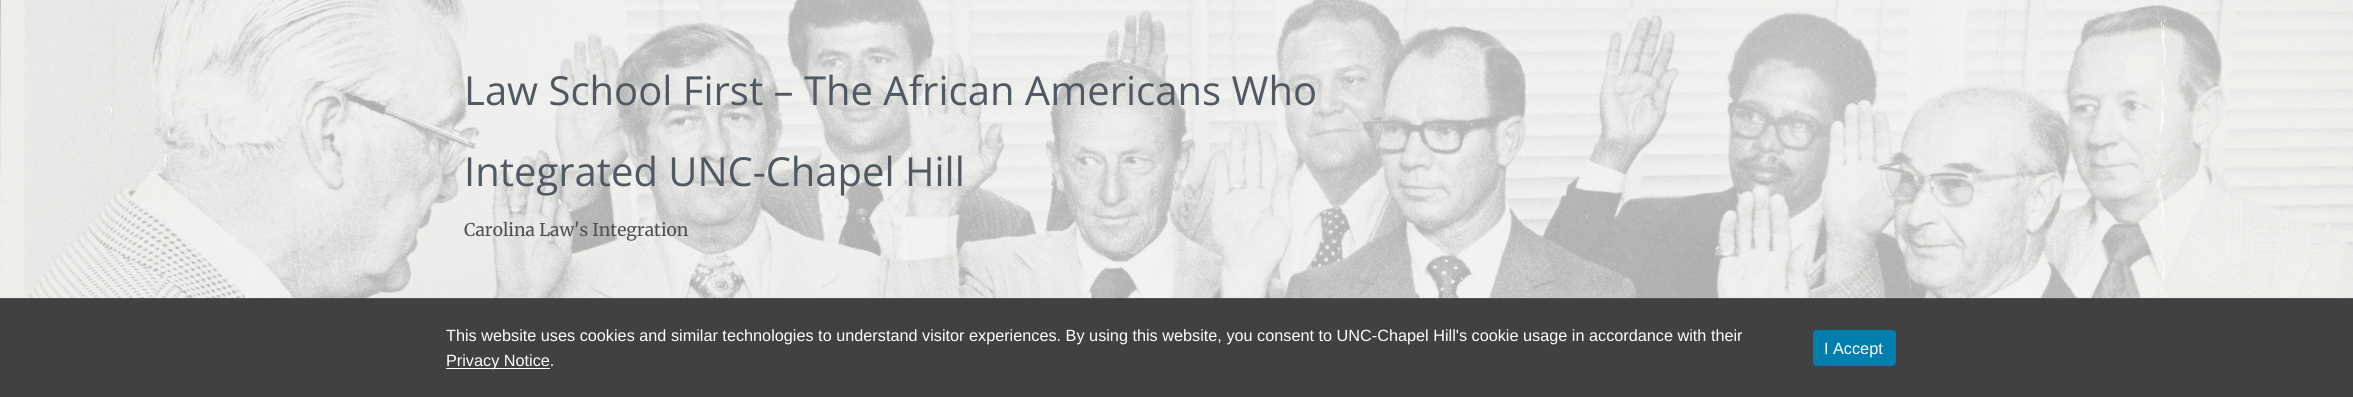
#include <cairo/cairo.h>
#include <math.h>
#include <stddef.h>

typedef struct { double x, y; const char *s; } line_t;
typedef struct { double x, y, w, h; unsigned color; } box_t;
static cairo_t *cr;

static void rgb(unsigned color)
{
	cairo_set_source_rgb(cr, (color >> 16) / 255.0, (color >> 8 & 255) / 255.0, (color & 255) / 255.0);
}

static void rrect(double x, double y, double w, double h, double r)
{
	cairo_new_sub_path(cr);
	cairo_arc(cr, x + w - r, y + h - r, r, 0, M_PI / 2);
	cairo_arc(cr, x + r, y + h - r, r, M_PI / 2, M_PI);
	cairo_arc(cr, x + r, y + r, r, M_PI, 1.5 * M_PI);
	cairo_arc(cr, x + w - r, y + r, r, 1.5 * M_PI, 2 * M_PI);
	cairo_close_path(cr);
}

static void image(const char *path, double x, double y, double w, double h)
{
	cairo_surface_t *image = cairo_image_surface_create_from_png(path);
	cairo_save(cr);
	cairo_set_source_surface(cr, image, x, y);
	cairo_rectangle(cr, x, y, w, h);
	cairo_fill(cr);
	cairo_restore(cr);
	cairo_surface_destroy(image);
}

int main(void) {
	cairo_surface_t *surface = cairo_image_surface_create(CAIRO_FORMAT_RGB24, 2353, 397);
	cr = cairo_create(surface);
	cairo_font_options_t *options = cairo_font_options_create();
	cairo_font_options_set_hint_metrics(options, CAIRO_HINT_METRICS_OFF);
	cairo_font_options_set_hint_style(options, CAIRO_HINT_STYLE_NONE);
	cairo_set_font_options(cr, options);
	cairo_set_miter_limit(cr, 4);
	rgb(0xffffff);
	cairo_paint(cr);
	image("img/1.png", 0, 0, 2353, 298);
	{
		static const box_t items[] = {
			{0, 299, 2353, 98, 0x414141},
			{0, 298, 2353, 1, 0x515151},
			{446, 368, 104, 1, 0xffffff},
		};
		for (size_t i = 0; i < sizeof items / sizeof *items; i++) {
			rgb(items[i].color);
			cairo_rectangle(cr, items[i].x, items[i].y, items[i].w, items[i].h);
			cairo_fill(cr);
		}
	}
	rgb(0x007fae);
	rrect(1813, 330, 83, 36, 4);
	cairo_fill(cr);
	cairo_select_font_face(cr, "Open Sans", CAIRO_FONT_SLANT_NORMAL, CAIRO_FONT_WEIGHT_NORMAL);
	cairo_set_font_size(cr, 40);
	rgb(0x505962);
	cairo_move_to(cr, 464, 105);
	cairo_show_text(cr, "Law School First – The African Americans Who");
	cairo_move_to(cr, 464, 186);
	cairo_show_text(cr, "Integrated UNC-Chapel Hill");
	cairo_select_font_face(cr, "Merriweather", CAIRO_FONT_SLANT_NORMAL, CAIRO_FONT_WEIGHT_NORMAL);
	cairo_set_font_size(cr, 17.5);
	rgb(0x4f4f4f);
	cairo_move_to(cr, 464, 236);
	cairo_show_text(cr, "Carolina Law's Integration");
	cairo_select_font_face(cr, "Liberation Sans", CAIRO_FONT_SLANT_NORMAL, CAIRO_FONT_WEIGHT_NORMAL);
	cairo_set_font_size(cr, 16.25);
	rgb(0xffffff);
	{
		static const line_t items[] = {
			{446, 341, "This website uses cookies and similar technologies to understand visitor experiences. By using this website, you consent to UNC-Chapel Hill's cookie usage in accordance with their"},
			{446, 366, "Privacy Notice."},
			{1824, 354, "I Accept"},
		};
		for (size_t i = 0; i < sizeof items / sizeof *items; i++) {
			cairo_move_to(cr, items[i].x, items[i].y);
			cairo_show_text(cr, items[i].s);
		}
	}
	cairo_surface_write_to_png(surface, "page.png");
	cairo_font_options_destroy(options);
	cairo_destroy(cr);
	cairo_surface_destroy(surface);
	return 0;
}
